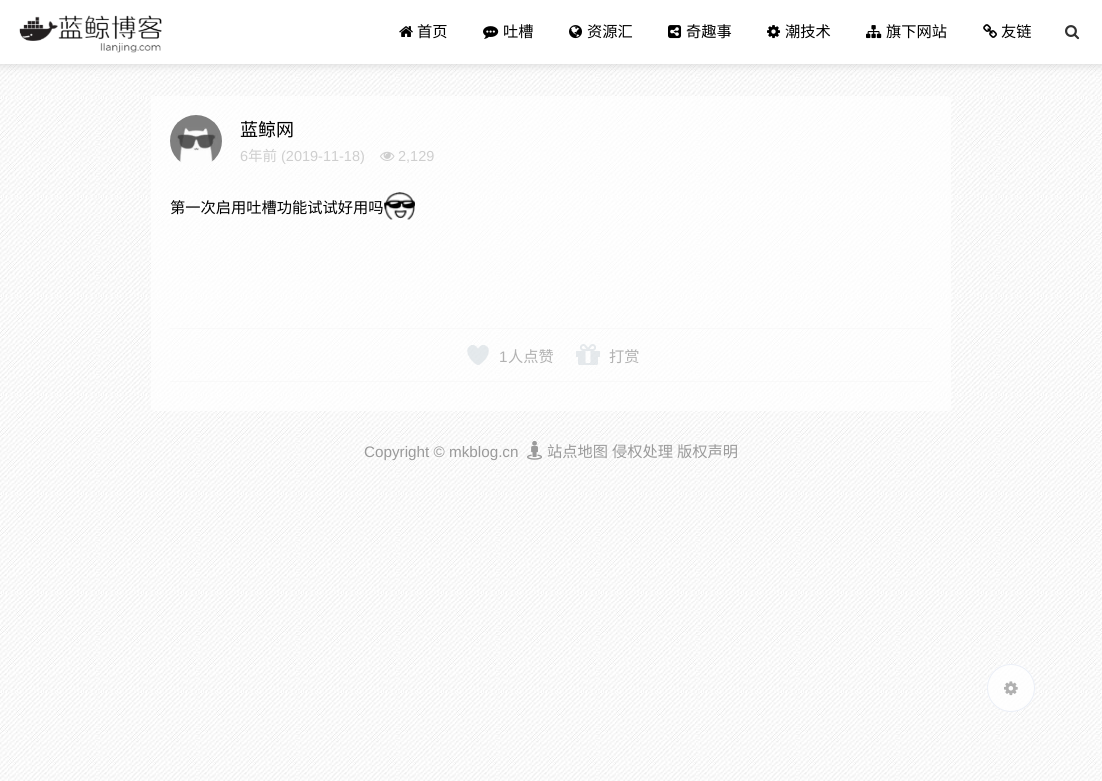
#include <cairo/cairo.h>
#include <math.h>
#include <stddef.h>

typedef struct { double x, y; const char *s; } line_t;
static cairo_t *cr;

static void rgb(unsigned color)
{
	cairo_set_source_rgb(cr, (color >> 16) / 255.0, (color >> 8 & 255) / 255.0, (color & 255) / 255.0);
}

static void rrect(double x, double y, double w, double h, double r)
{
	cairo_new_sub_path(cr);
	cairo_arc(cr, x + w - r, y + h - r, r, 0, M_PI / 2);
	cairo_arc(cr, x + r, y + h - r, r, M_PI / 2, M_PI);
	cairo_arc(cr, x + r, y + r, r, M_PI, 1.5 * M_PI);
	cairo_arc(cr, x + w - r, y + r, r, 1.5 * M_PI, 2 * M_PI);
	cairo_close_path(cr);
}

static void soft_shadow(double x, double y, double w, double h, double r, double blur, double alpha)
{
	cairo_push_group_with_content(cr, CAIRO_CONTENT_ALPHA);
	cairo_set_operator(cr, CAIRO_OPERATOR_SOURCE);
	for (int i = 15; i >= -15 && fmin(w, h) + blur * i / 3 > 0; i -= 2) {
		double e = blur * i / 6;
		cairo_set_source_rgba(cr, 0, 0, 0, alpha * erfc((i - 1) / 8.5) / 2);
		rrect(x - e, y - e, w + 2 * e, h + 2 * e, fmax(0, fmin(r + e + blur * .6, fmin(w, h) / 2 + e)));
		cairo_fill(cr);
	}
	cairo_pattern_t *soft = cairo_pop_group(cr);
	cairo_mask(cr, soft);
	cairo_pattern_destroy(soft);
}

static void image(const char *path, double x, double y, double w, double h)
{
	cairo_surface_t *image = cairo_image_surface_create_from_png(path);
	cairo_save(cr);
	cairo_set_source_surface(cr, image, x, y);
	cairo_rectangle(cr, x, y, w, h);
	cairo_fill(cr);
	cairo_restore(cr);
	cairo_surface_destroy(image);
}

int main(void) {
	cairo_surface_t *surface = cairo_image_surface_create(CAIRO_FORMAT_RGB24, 1102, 781);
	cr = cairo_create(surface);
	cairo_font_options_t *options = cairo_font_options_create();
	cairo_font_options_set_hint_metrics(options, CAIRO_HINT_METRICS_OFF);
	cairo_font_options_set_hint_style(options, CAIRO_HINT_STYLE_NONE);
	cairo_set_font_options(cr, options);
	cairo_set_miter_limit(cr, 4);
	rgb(0xffffff);
	cairo_paint(cr);
	image("img/1.png", 0, 64, 1102, 717);
	rgb(0xd0d0d0);
	soft_shadow(0, 0, 1102, 64, 0, 5, 1);
	rgb(0xffffff);
	cairo_rectangle(cr, 0, 0, 1102, 64);
	cairo_fill(cr);
	image("img/2.png", 19, 15, 143, 38);
	image("img/3.png", 399, 26, 14, 11);
	image("img/4.png", 483, 26, 16, 13);
	image("img/5.png", 569, 25, 13, 14);
	image("img/6.png", 668, 25, 14, 14);
	image("img/7.png", 767, 25, 14, 14);
	image("img/8.png", 866, 25, 16, 14);
	image("img/9.png", 983, 24, 14, 14);
	image("img/10.png", 1065, 25, 15, 15);
	cairo_set_source_rgba(cr, 1, 1, 1, 0.68);
	rrect(151, 96, 800, 315, 4);
	cairo_fill(cr);
	image("img/11.png", 170, 115, 52, 51);
	image("img/12.png", 380, 151, 15, 10);
	image("img/13.png", 384, 192, 31, 28);
	cairo_set_source_rgba(cr, 0.933, 0.933, 0.933, 0.3);
	cairo_rectangle(cr, 170, 328, 762, 1);
	cairo_fill(cr);
	cairo_rectangle(cr, 170, 381, 762, 1);
	cairo_fill(cr);
	image("img/14.png", 467, 345, 22, 20);
	image("img/15.png", 576, 344, 24, 21);
	image("img/16.png", 527, 440, 15, 20);
	cairo_set_source_rgba(cr, 1, 1, 1, 0.8);
	cairo_arc(cr, 1011, 688, 24, 0, 2 * M_PI);
	cairo_fill(cr);
	cairo_arc(cr, 1011, 688, 23.5, 0, 2 * M_PI);
	cairo_set_source_rgba(cr, 0.902, 0.922, 0.961, 0.8);
	cairo_set_line_width(cr, 1);
	cairo_stroke(cr);
	image("img/17.png", 1004, 681, 14, 15);
	cairo_select_font_face(cr, "Noto Sans CJK SC", CAIRO_FONT_SLANT_NORMAL, CAIRO_FONT_WEIGHT_NORMAL);
	cairo_set_font_size(cr, 15.25);
	rgb(0x000000);
	{
		static const line_t items[] = {
			{417, 37, "首页"},
			{503, 37, "吐槽"},
			{587, 37, "资源汇"},
			{686, 37, "奇趣事"},
			{785, 37, "潮技术"},
			{886, 37, "旗下网站"},
			{1001, 37, "友链"},
		};
		for (size_t i = 0; i < sizeof items / sizeof *items; i++) {
			cairo_move_to(cr, items[i].x, items[i].y);
			cairo_show_text(cr, items[i].s);
		}
	}
	cairo_set_font_size(cr, 18);
	cairo_move_to(cr, 240, 136);
	cairo_show_text(cr, "蓝鲸网");
	cairo_select_font_face(cr, "Liberation Sans", CAIRO_FONT_SLANT_NORMAL, CAIRO_FONT_WEIGHT_NORMAL);
	cairo_set_font_size(cr, 14.5);
	rgb(0xcecece);
	cairo_move_to(cr, 240, 161);
	cairo_show_text(cr, "6");
	cairo_select_font_face(cr, "Noto Sans CJK SC", CAIRO_FONT_SLANT_NORMAL, CAIRO_FONT_WEIGHT_NORMAL);
	cairo_move_to(cr, 248, 161);
	cairo_show_text(cr, "年前");
	cairo_select_font_face(cr, "Liberation Sans", CAIRO_FONT_SLANT_NORMAL, CAIRO_FONT_WEIGHT_NORMAL);
	cairo_move_to(cr, 281, 161);
	cairo_show_text(cr, "(2019-11-18)");
	cairo_move_to(cr, 398, 161);
	cairo_show_text(cr, "2,129");
	cairo_select_font_face(cr, "Noto Sans CJK SC", CAIRO_FONT_SLANT_NORMAL, CAIRO_FONT_WEIGHT_NORMAL);
	cairo_set_font_size(cr, 15.25);
	rgb(0x000000);
	cairo_move_to(cr, 170, 213);
	cairo_show_text(cr, "第一次启用吐槽功能试试好用吗");
	cairo_select_font_face(cr, "Liberation Sans", CAIRO_FONT_SLANT_NORMAL, CAIRO_FONT_WEIGHT_NORMAL);
	rgb(0xb1b1b1);
	cairo_move_to(cr, 499, 362);
	cairo_show_text(cr, "1");
	cairo_select_font_face(cr, "Noto Sans CJK SC", CAIRO_FONT_SLANT_NORMAL, CAIRO_FONT_WEIGHT_NORMAL);
	cairo_move_to(cr, 508, 362);
	cairo_show_text(cr, "人点赞");
	cairo_move_to(cr, 609, 362);
	cairo_show_text(cr, "打赏");
	cairo_select_font_face(cr, "Liberation Sans", CAIRO_FONT_SLANT_NORMAL, CAIRO_FONT_WEIGHT_NORMAL);
	rgb(0x9a9a9a);
	cairo_move_to(cr, 364, 457);
	cairo_show_text(cr, "Copyright © mkblog.cn");
	cairo_select_font_face(cr, "Noto Sans CJK SC", CAIRO_FONT_SLANT_NORMAL, CAIRO_FONT_WEIGHT_NORMAL);
	{
		static const line_t items[] = {
			{547, 457, "站点地图"},
			{612, 457, "侵权处理"},
			{677, 457, "版权声明"},
		};
		for (size_t i = 0; i < sizeof items / sizeof *items; i++) {
			cairo_move_to(cr, items[i].x, items[i].y);
			cairo_show_text(cr, items[i].s);
		}
	}
	cairo_surface_write_to_png(surface, "page.png");
	cairo_font_options_destroy(options);
	cairo_destroy(cr);
	cairo_surface_destroy(surface);
	return 0;
}
